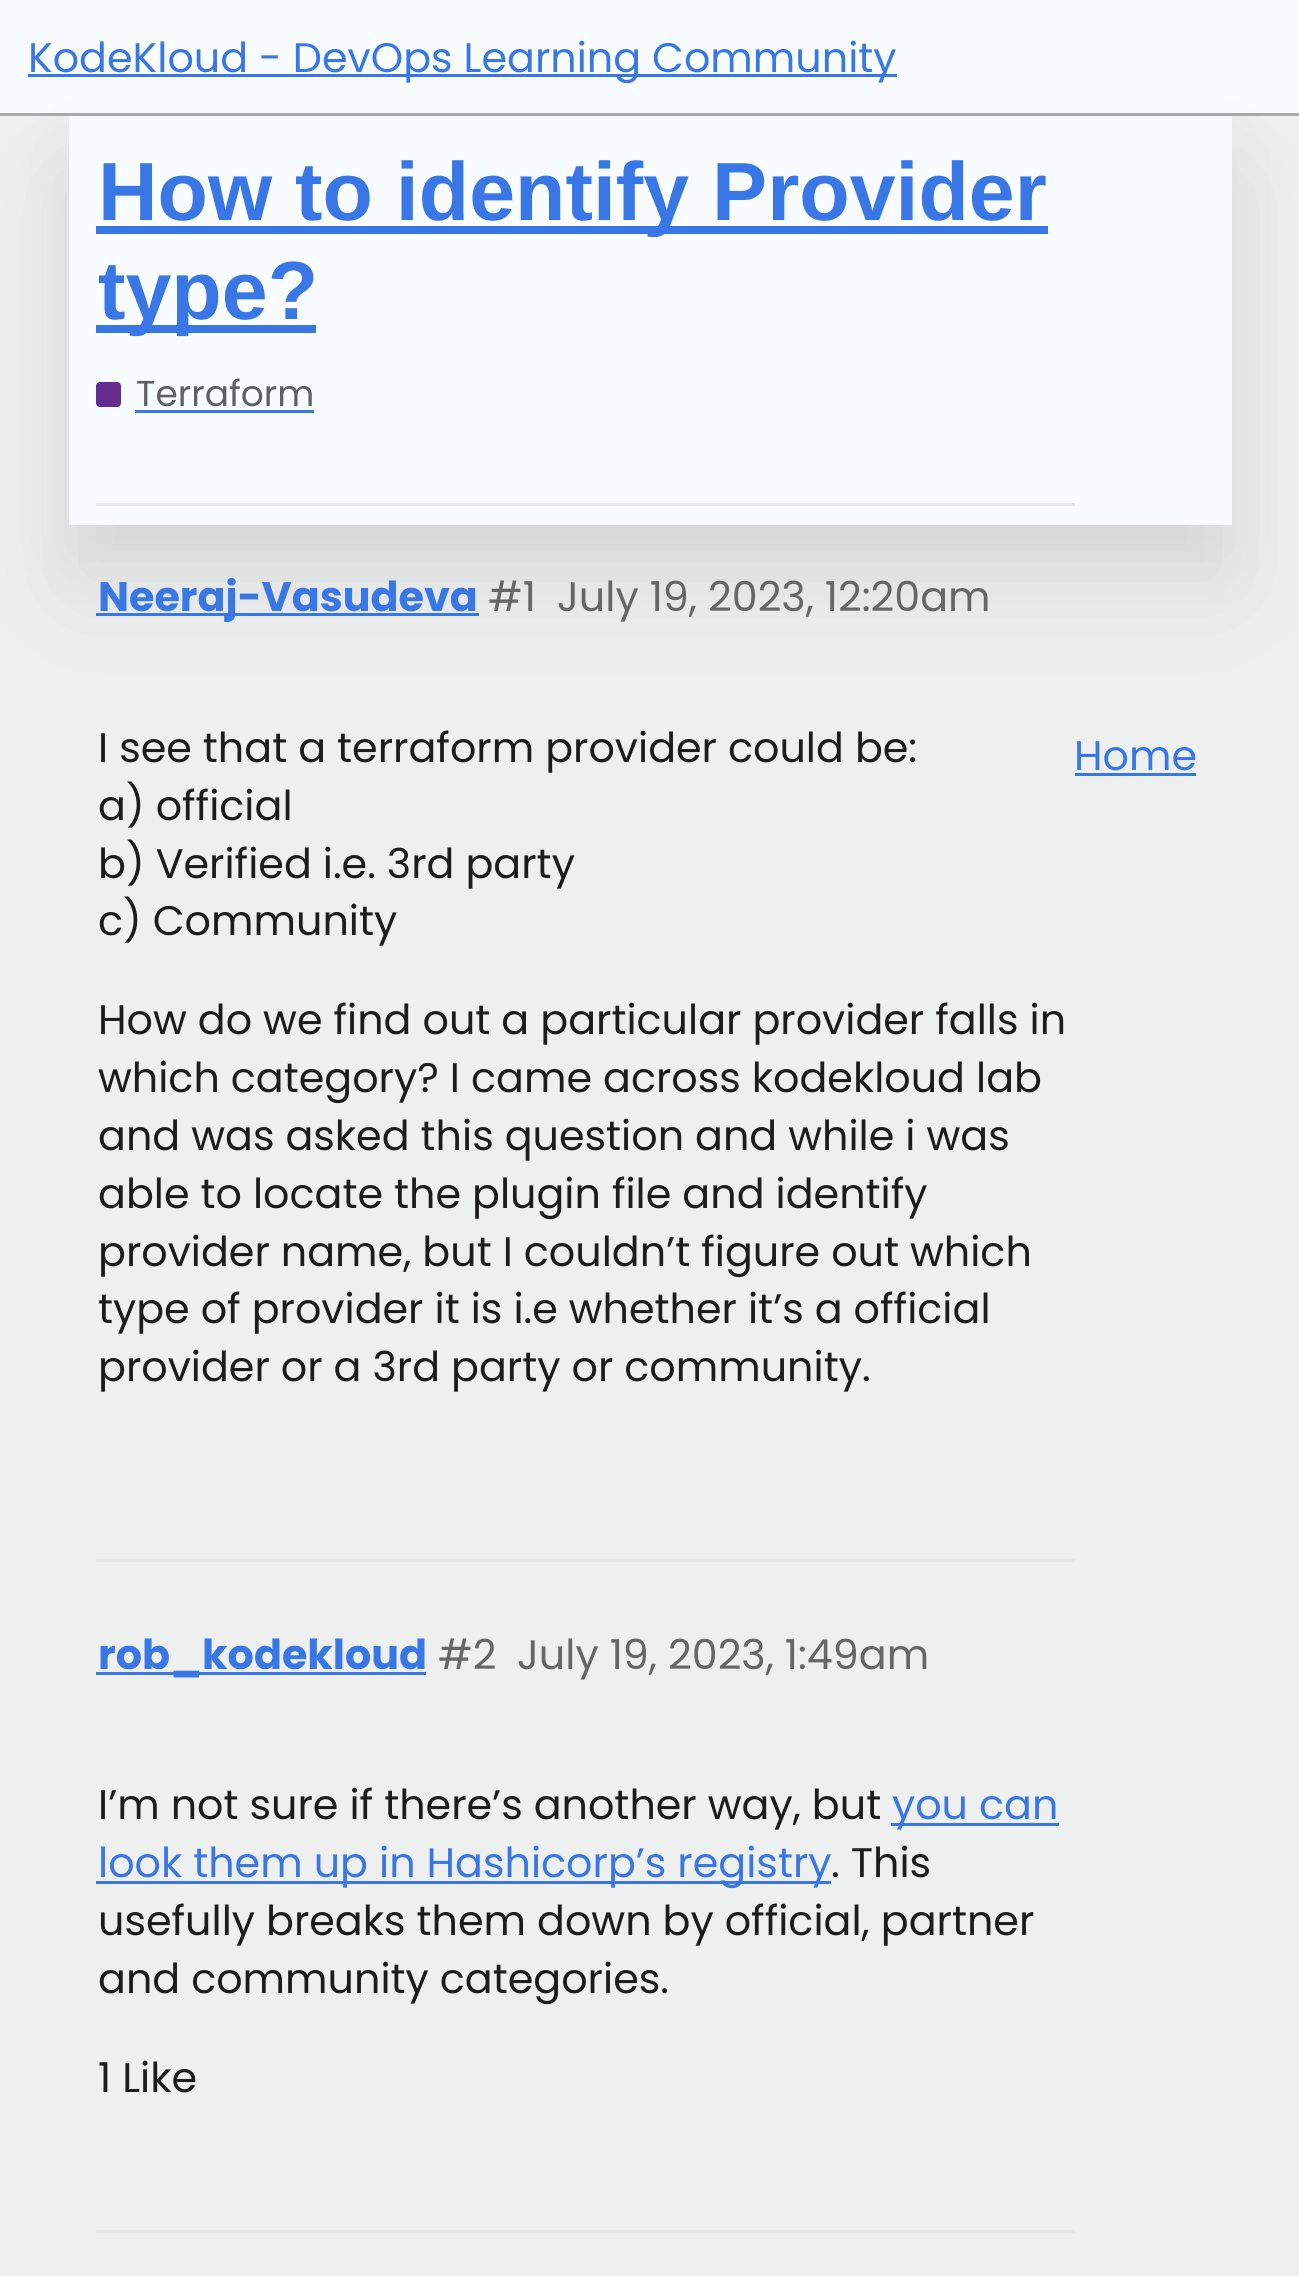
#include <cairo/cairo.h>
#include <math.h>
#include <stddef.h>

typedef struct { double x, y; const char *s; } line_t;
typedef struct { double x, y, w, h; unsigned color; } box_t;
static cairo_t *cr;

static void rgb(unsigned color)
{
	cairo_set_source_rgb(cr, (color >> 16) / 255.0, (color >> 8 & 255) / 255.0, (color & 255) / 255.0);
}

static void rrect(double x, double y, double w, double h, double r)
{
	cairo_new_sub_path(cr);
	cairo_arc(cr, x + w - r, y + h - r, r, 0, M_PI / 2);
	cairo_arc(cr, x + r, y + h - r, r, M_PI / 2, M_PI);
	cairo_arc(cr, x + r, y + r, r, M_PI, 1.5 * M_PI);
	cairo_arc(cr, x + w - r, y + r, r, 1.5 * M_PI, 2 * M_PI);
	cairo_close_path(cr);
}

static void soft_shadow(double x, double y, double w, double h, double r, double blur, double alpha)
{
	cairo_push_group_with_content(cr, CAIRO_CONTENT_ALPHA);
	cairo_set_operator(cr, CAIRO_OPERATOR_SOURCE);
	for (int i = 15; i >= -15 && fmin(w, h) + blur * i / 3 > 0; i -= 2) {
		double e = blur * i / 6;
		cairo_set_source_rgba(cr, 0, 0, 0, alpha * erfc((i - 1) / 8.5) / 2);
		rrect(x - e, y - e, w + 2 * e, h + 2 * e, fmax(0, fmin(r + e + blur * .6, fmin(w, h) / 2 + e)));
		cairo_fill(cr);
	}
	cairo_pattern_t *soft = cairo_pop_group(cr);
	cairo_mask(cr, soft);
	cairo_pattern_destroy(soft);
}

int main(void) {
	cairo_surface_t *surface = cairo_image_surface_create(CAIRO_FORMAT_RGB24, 1299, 2276);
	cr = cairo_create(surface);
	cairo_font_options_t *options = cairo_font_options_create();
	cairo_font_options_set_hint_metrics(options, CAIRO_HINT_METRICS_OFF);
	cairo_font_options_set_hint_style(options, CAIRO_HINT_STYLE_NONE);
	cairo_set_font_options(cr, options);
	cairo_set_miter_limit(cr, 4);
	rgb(0xeeefef);
	cairo_paint(cr);
	rgb(0xf9fcff);
	cairo_rectangle(cr, 0, 0, 1299, 113);
	cairo_fill(cr);
	rgb(0xa8acb2);
	cairo_rectangle(cr, 0, 113, 1299, 3);
	cairo_fill(cr);
	rgb(0x000000);
	soft_shadow(69, 146, 1163, 410, 0, 33, 0.05);
	soft_shadow(69, 182, 1163, 409, 0, 55, 0.07);
	{
		static const box_t items[] = {
			{28, 74, 869, 3, 0x3877e5},
			{69, 116, 1163, 409, 0xf9fcff},
			{96, 226, 952, 8, 0x3877e5},
			{96, 325, 220, 8, 0x3877e5},
		};
		for (size_t i = 0; i < sizeof items / sizeof *items; i++) {
			rgb(items[i].color);
			cairo_rectangle(cr, items[i].x, items[i].y, items[i].w, items[i].h);
			cairo_fill(cr);
		}
	}
	rgb(0x652d90);
	rrect(96, 382, 25, 25, 4);
	cairo_fill(cr);
	{
		static const box_t items[] = {
			{135, 410, 179, 3, 0x3877e5},
			{96, 503, 979, 3, 0xe8e8e8},
			{96, 613, 383, 3, 0x3877e5},
			{96, 1559, 979, 3, 0xe8e8e8},
			{96, 1672, 330, 3, 0x3877e5},
			{891, 1823, 168, 3, 0x3877e5},
			{96, 1881, 735, 3, 0x3877e5},
			{96, 2230, 979, 3, 0xe8e8e8},
			{1075, 773, 121, 3, 0x3877e5},
		};
		for (size_t i = 0; i < sizeof items / sizeof *items; i++) {
			rgb(items[i].color);
			cairo_rectangle(cr, items[i].x, items[i].y, items[i].w, items[i].h);
			cairo_fill(cr);
		}
	}
	cairo_select_font_face(cr, "Poppins", CAIRO_FONT_SLANT_NORMAL, CAIRO_FONT_WEIGHT_NORMAL);
	cairo_set_font_size(cr, 41.25);
	cairo_move_to(cr, 28, 72);
	cairo_show_text(cr, "KodeKloud - DevOps Learning Community");
	cairo_select_font_face(cr, "Liberation Sans", CAIRO_FONT_SLANT_NORMAL, CAIRO_FONT_WEIGHT_BOLD);
	cairo_set_font_size(cr, 82.5);
	cairo_move_to(cr, 98, 220);
	cairo_show_text(cr, "How to identify Provider");
	cairo_move_to(cr, 98, 319);
	cairo_show_text(cr, "type?");
	cairo_select_font_face(cr, "Poppins", CAIRO_FONT_SLANT_NORMAL, CAIRO_FONT_WEIGHT_NORMAL);
	cairo_set_font_size(cr, 36);
	rgb(0x606060);
	cairo_move_to(cr, 136, 406);
	cairo_show_text(cr, "Terraform");
	cairo_select_font_face(cr, "Poppins", CAIRO_FONT_SLANT_NORMAL, CAIRO_FONT_WEIGHT_BOLD);
	cairo_set_font_size(cr, 41.25);
	rgb(0x3877e5);
	cairo_move_to(cr, 98, 611);
	cairo_show_text(cr, "Neeraj-Vasudeva");
	cairo_select_font_face(cr, "Poppins", CAIRO_FONT_SLANT_NORMAL, CAIRO_FONT_WEIGHT_NORMAL);
	rgb(0x666666);
	cairo_move_to(cr, 488, 611);
	cairo_show_text(cr, "#1");
	cairo_move_to(cr, 557, 611);
	cairo_show_text(cr, "July 19, 2023, 12:20am");
	rgb(0x1c1c1c);
	{
		static const line_t items[] = {
			{98, 762, "I see that a terraform provider could be:"},
			{98, 820, "a) official"},
			{98, 878, "b) Verified i.e. 3rd party"},
			{98, 935, "c) Community"},
			{98, 1034, "How do we find out a particular provider falls in"},
			{98, 1092, "which category? I came across kodekloud lab"},
			{98, 1150, "and was asked this question and while i was"},
			{98, 1208, "able to locate the plugin file and identify"},
			{98, 1266, "provider name, but I couldn’t figure out which"},
			{98, 1323, "type of provider it is i.e whether it’s a official"},
			{98, 1381, "provider or a 3rd party or community."},
		};
		for (size_t i = 0; i < sizeof items / sizeof *items; i++) {
			cairo_move_to(cr, items[i].x, items[i].y);
			cairo_show_text(cr, items[i].s);
		}
	}
	cairo_select_font_face(cr, "Poppins", CAIRO_FONT_SLANT_NORMAL, CAIRO_FONT_WEIGHT_BOLD);
	rgb(0x3877e5);
	cairo_move_to(cr, 98, 1669);
	cairo_show_text(cr, "rob_kodekloud");
	cairo_select_font_face(cr, "Poppins", CAIRO_FONT_SLANT_NORMAL, CAIRO_FONT_WEIGHT_NORMAL);
	rgb(0x666666);
	cairo_move_to(cr, 438, 1669);
	cairo_show_text(cr, "#2");
	cairo_move_to(cr, 517, 1669);
	cairo_show_text(cr, "July 19, 2023, 1:49am");
	rgb(0x1c1c1c);
	cairo_move_to(cr, 98, 1819);
	cairo_show_text(cr, "I’m not sure if there’s another way, but");
	rgb(0x3877e5);
	cairo_move_to(cr, 892, 1819);
	cairo_show_text(cr, "you can");
	cairo_move_to(cr, 98, 1877);
	cairo_show_text(cr, "look them up in Hashicorp’s registry");
	rgb(0x1c1c1c);
	{
		static const line_t items[] = {
			{831, 1877, ". This"},
			{98, 1935, "usefully breaks them down by official, partner"},
			{98, 1993, "and community categories."},
			{98, 2092, "1 Like"},
		};
		for (size_t i = 0; i < sizeof items / sizeof *items; i++) {
			cairo_move_to(cr, items[i].x, items[i].y);
			cairo_show_text(cr, items[i].s);
		}
	}
	rgb(0x3877e5);
	cairo_move_to(cr, 1074, 770);
	cairo_show_text(cr, "Home");
	cairo_surface_write_to_png(surface, "page.png");
	cairo_font_options_destroy(options);
	cairo_destroy(cr);
	cairo_surface_destroy(surface);
	return 0;
}
